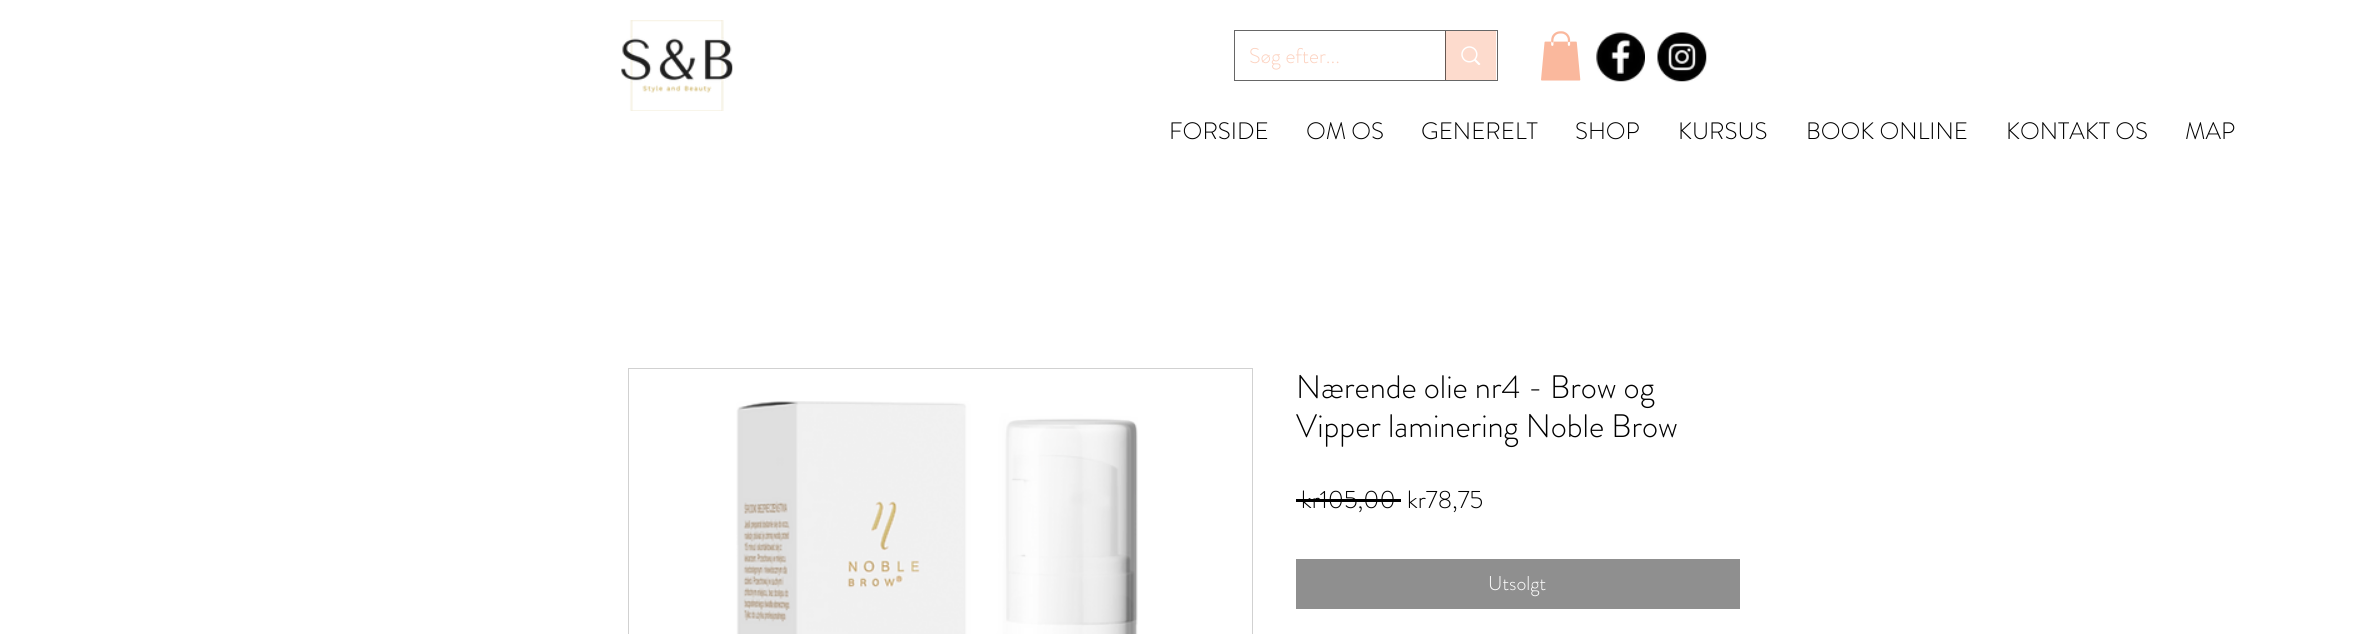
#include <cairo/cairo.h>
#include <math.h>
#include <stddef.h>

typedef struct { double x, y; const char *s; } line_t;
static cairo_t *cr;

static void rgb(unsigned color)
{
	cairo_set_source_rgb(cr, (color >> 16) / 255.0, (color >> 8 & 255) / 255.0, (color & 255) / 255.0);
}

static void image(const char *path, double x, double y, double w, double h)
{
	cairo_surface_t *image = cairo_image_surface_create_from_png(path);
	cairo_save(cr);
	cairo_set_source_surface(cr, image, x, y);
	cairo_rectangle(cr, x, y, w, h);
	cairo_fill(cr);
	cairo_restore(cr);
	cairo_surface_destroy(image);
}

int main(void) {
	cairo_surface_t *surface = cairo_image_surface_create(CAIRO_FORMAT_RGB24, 2366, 634);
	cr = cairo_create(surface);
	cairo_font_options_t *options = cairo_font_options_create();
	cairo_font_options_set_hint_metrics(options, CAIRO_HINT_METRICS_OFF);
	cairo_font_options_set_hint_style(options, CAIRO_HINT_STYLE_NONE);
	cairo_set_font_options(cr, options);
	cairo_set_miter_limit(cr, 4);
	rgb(0xffffff);
	cairo_paint(cr);
	image("img/1.png", 621, 20, 112, 91);
	cairo_rectangle(cr, 1234.5, 30.5, 263, 50);
	rgb(0x666666);
	cairo_set_line_width(cr, 1);
	cairo_stroke(cr);
	rgb(0xfddbcd);
	cairo_rectangle(cr, 1446, 31, 50, 49);
	cairo_fill(cr);
	rgb(0x655852);
	cairo_rectangle(cr, 1445, 31, 1, 49);
	cairo_fill(cr);
	image("img/2.png", 1461, 46, 20, 19);
	image("img/3.png", 1541, 31, 40, 50);
	image("img/4.png", 1596, 32, 49, 50);
	image("img/5.png", 1657, 32, 50, 50);
	cairo_rectangle(cr, 628.5, 368.5, 624, 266);
	rgb(0xd1d1d1);
	cairo_stroke(cr);
	image("img/6.png", 736, 401, 402, 233);
	rgb(0x000000);
	cairo_rectangle(cr, 1296, 499, 105, 3);
	cairo_fill(cr);
	rgb(0x8f8f8f);
	cairo_rectangle(cr, 1296, 559, 444, 50);
	cairo_fill(cr);
	cairo_select_font_face(cr, "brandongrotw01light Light", CAIRO_FONT_SLANT_NORMAL, CAIRO_FONT_WEIGHT_NORMAL);
	cairo_set_font_size(cr, 21.25);
	rgb(0xfcd2c0);
	cairo_move_to(cr, 1249, 63);
	cairo_show_text(cr, "Søg efter...");
	cairo_set_font_size(cr, 23.75);
	rgb(0x000000);
	{
		static const line_t items[] = {
			{1169, 139, "FORSIDE"},
			{1306, 139, "OM OS"},
			{1421, 139, "GENERELT"},
			{1575, 139, "SHOP"},
			{1678, 139, "KURSUS"},
			{1806, 139, "BOOK ONLINE"},
			{2006, 139, "KONTAKT OS"},
			{2185, 139, "MAP"},
		};
		for (size_t i = 0; i < sizeof items / sizeof *items; i++) {
			cairo_move_to(cr, items[i].x, items[i].y);
			cairo_show_text(cr, items[i].s);
		}
	}
	cairo_set_font_size(cr, 32.5);
	cairo_move_to(cr, 1296, 398);
	cairo_show_text(cr, "Nærende olie nr4 - Brow og");
	cairo_move_to(cr, 1296, 437);
	cairo_show_text(cr, "Vipper laminering Noble Brow");
	cairo_set_font_size(cr, 25);
	cairo_move_to(cr, 1301, 508);
	cairo_show_text(cr, "kr105,00");
	cairo_move_to(cr, 1407, 508);
	cairo_show_text(cr, "kr78,75");
	cairo_set_font_size(cr, 20);
	rgb(0xffffff);
	cairo_move_to(cr, 1488, 590);
	cairo_show_text(cr, "Utsolgt");
	cairo_surface_write_to_png(surface, "page.png");
	cairo_font_options_destroy(options);
	cairo_destroy(cr);
	cairo_surface_destroy(surface);
	return 0;
}
